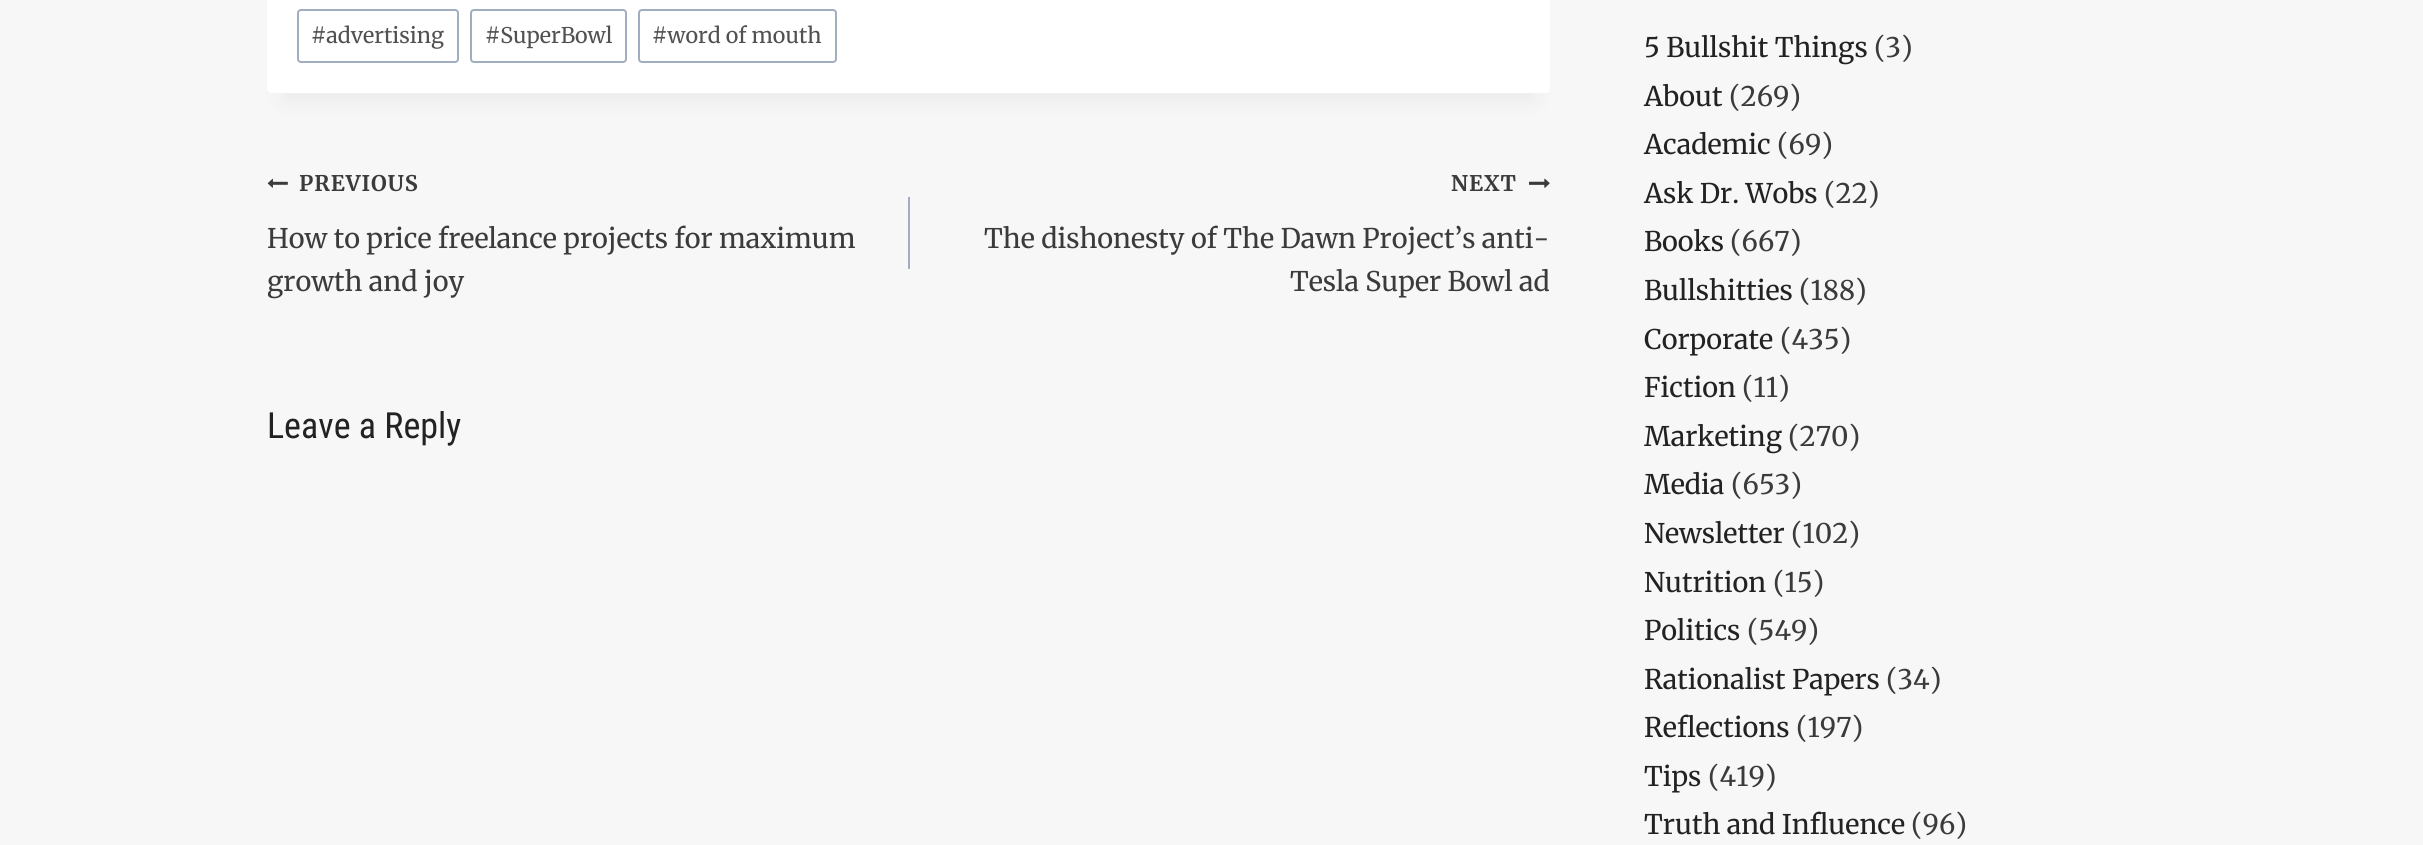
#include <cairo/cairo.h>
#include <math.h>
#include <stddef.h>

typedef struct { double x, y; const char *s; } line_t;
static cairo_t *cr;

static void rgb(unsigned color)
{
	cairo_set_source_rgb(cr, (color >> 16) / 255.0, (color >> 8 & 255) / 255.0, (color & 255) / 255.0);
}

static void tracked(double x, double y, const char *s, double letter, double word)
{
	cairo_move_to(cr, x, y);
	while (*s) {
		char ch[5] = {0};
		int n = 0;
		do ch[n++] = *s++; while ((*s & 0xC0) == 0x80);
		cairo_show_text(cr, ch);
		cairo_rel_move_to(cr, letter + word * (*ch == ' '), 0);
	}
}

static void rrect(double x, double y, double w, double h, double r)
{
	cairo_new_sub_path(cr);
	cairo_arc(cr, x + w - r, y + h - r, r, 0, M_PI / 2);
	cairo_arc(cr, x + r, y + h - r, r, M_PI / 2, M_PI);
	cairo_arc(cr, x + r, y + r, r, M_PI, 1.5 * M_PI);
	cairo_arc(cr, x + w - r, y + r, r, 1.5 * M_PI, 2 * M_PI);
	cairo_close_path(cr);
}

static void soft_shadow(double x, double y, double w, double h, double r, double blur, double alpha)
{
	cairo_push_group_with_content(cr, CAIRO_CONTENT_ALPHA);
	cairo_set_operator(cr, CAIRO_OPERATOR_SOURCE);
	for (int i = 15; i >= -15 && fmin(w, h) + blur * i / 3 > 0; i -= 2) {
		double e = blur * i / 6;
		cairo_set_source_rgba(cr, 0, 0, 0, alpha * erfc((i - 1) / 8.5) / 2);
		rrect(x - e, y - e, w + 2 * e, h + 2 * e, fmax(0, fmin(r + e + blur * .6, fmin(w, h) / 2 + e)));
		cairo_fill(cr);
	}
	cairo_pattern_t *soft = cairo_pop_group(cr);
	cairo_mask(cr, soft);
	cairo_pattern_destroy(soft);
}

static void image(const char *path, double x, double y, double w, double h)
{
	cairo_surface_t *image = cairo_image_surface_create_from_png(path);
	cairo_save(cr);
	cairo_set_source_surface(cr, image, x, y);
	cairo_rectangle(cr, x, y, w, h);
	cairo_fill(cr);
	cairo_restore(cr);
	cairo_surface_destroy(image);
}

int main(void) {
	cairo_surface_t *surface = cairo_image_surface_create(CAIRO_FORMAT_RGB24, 2423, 845);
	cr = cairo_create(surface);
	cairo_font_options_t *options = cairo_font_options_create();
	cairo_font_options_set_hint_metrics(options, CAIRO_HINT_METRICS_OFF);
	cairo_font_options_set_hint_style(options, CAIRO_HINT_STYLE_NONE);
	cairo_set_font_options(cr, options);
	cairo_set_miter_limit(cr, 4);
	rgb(0xf7f7f7);
	cairo_paint(cr);
	rgb(0x000000);
	soft_shadow(282, -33, 1253, 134, 0, 11, 0.05);
	rgb(0xffffff);
	rrect(267, -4, 1283, 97, 4);
	cairo_fill(cr);
	rrect(298, 10, 160, 52, 3);
	rgb(0xa0aec0);
	cairo_stroke(cr);
	rrect(471, 10, 155, 52, 3);
	cairo_stroke(cr);
	rrect(639, 10, 197, 52, 3);
	cairo_stroke(cr);
	image("img/1.png", 267, 178, 21, 10);
	cairo_rectangle(cr, 908, 197, 2, 72);
	cairo_fill(cr);
	image("img/2.png", 1529, 178, 21, 10);
	cairo_select_font_face(cr, "Merriweather", CAIRO_FONT_SLANT_NORMAL, CAIRO_FONT_WEIGHT_NORMAL);
	cairo_set_font_size(cr, 21.5);
	rgb(0x515151);
	{
		static const line_t items[] = {
			{311, 43, "#advertising"},
			{485, 43, "#SuperBowl"},
			{652, 43, "#word of mouth"},
		};
		for (size_t i = 0; i < sizeof items / sizeof *items; i++) {
			cairo_move_to(cr, items[i].x, items[i].y);
			cairo_show_text(cr, items[i].s);
		}
	}
	cairo_select_font_face(cr, "Merriweather", CAIRO_FONT_SLANT_NORMAL, CAIRO_FONT_WEIGHT_BOLD);
	rgb(0x3b3b3b);
	tracked(299, 191, "PREVIOUS", 1, 0);
	cairo_select_font_face(cr, "Merriweather", CAIRO_FONT_SLANT_NORMAL, CAIRO_FONT_WEIGHT_NORMAL);
	cairo_set_font_size(cr, 27);
	cairo_move_to(cr, 267, 248);
	cairo_show_text(cr, "How to price freelance projects for maximum");
	cairo_move_to(cr, 267, 291);
	cairo_show_text(cr, "growth and joy");
	cairo_select_font_face(cr, "Merriweather", CAIRO_FONT_SLANT_NORMAL, CAIRO_FONT_WEIGHT_BOLD);
	cairo_set_font_size(cr, 21.5);
	tracked(1451, 191, "NEXT", 1, 0);
	cairo_select_font_face(cr, "Merriweather", CAIRO_FONT_SLANT_NORMAL, CAIRO_FONT_WEIGHT_NORMAL);
	cairo_set_font_size(cr, 27);
	cairo_move_to(cr, 984, 248);
	cairo_show_text(cr, "The dishonesty of The Dawn Project’s anti-");
	cairo_move_to(cr, 1290, 291);
	cairo_show_text(cr, "Tesla Super Bowl ad");
	cairo_select_font_face(cr, "Roboto Condensed", CAIRO_FONT_SLANT_NORMAL, CAIRO_FONT_WEIGHT_NORMAL);
	cairo_set_font_size(cr, 36);
	rgb(0x222222);
	cairo_move_to(cr, 267, 438);
	cairo_show_text(cr, "Leave a Reply");
	cairo_select_font_face(cr, "Merriweather", CAIRO_FONT_SLANT_NORMAL, CAIRO_FONT_WEIGHT_NORMAL);
	cairo_set_font_size(cr, 27);
	cairo_move_to(cr, 1644, 57);
	cairo_show_text(cr, "5 Bullshit Things");
	rgb(0x3b3b3b);
	cairo_move_to(cr, 1874, 57);
	cairo_show_text(cr, "(3)");
	rgb(0x222222);
	cairo_move_to(cr, 1644, 106);
	cairo_show_text(cr, "About");
	rgb(0x3b3b3b);
	cairo_move_to(cr, 1729, 106);
	cairo_show_text(cr, "(269)");
	rgb(0x222222);
	cairo_move_to(cr, 1644, 154);
	cairo_show_text(cr, "Academic");
	rgb(0x3b3b3b);
	cairo_move_to(cr, 1777, 154);
	cairo_show_text(cr, "(69)");
	rgb(0x222222);
	cairo_move_to(cr, 1644, 203);
	cairo_show_text(cr, "Ask Dr. Wobs");
	rgb(0x3b3b3b);
	cairo_move_to(cr, 1824, 203);
	cairo_show_text(cr, "(22)");
	rgb(0x222222);
	cairo_move_to(cr, 1644, 251);
	cairo_show_text(cr, "Books");
	rgb(0x3b3b3b);
	cairo_move_to(cr, 1730, 251);
	cairo_show_text(cr, "(667)");
	rgb(0x222222);
	cairo_move_to(cr, 1644, 300);
	cairo_show_text(cr, "Bullshitties");
	rgb(0x3b3b3b);
	cairo_move_to(cr, 1799, 300);
	cairo_show_text(cr, "(188)");
	rgb(0x222222);
	cairo_move_to(cr, 1644, 349);
	cairo_show_text(cr, "Corporate");
	rgb(0x3b3b3b);
	cairo_move_to(cr, 1780, 349);
	cairo_show_text(cr, "(435)");
	rgb(0x222222);
	cairo_move_to(cr, 1644, 397);
	cairo_show_text(cr, "Fiction");
	rgb(0x3b3b3b);
	cairo_move_to(cr, 1742, 397);
	cairo_show_text(cr, "(11)");
	rgb(0x222222);
	cairo_move_to(cr, 1644, 446);
	cairo_show_text(cr, "Marketing");
	rgb(0x3b3b3b);
	cairo_move_to(cr, 1788, 446);
	cairo_show_text(cr, "(270)");
	rgb(0x222222);
	cairo_move_to(cr, 1644, 494);
	cairo_show_text(cr, "Media");
	rgb(0x3b3b3b);
	cairo_move_to(cr, 1731, 494);
	cairo_show_text(cr, "(653)");
	rgb(0x222222);
	cairo_move_to(cr, 1644, 543);
	cairo_show_text(cr, "Newsletter");
	rgb(0x3b3b3b);
	cairo_move_to(cr, 1791, 543);
	cairo_show_text(cr, "(102)");
	rgb(0x222222);
	cairo_move_to(cr, 1644, 592);
	cairo_show_text(cr, "Nutrition");
	rgb(0x3b3b3b);
	cairo_move_to(cr, 1773, 592);
	cairo_show_text(cr, "(15)");
	rgb(0x222222);
	cairo_move_to(cr, 1644, 640);
	cairo_show_text(cr, "Politics");
	rgb(0x3b3b3b);
	cairo_move_to(cr, 1747, 640);
	cairo_show_text(cr, "(549)");
	rgb(0x222222);
	cairo_move_to(cr, 1644, 689);
	cairo_show_text(cr, "Rationalist Papers");
	rgb(0x3b3b3b);
	cairo_move_to(cr, 1886, 689);
	cairo_show_text(cr, "(34)");
	rgb(0x222222);
	cairo_move_to(cr, 1644, 737);
	cairo_show_text(cr, "Reflections");
	rgb(0x3b3b3b);
	cairo_move_to(cr, 1796, 737);
	cairo_show_text(cr, "(197)");
	rgb(0x222222);
	cairo_move_to(cr, 1644, 786);
	cairo_show_text(cr, "Tips");
	rgb(0x3b3b3b);
	cairo_move_to(cr, 1708, 786);
	cairo_show_text(cr, "(419)");
	rgb(0x222222);
	cairo_move_to(cr, 1644, 834);
	cairo_show_text(cr, "Truth and Influence");
	rgb(0x3b3b3b);
	cairo_move_to(cr, 1911, 834);
	cairo_show_text(cr, "(96)");
	cairo_surface_write_to_png(surface, "page.png");
	cairo_font_options_destroy(options);
	cairo_destroy(cr);
	cairo_surface_destroy(surface);
	return 0;
}
